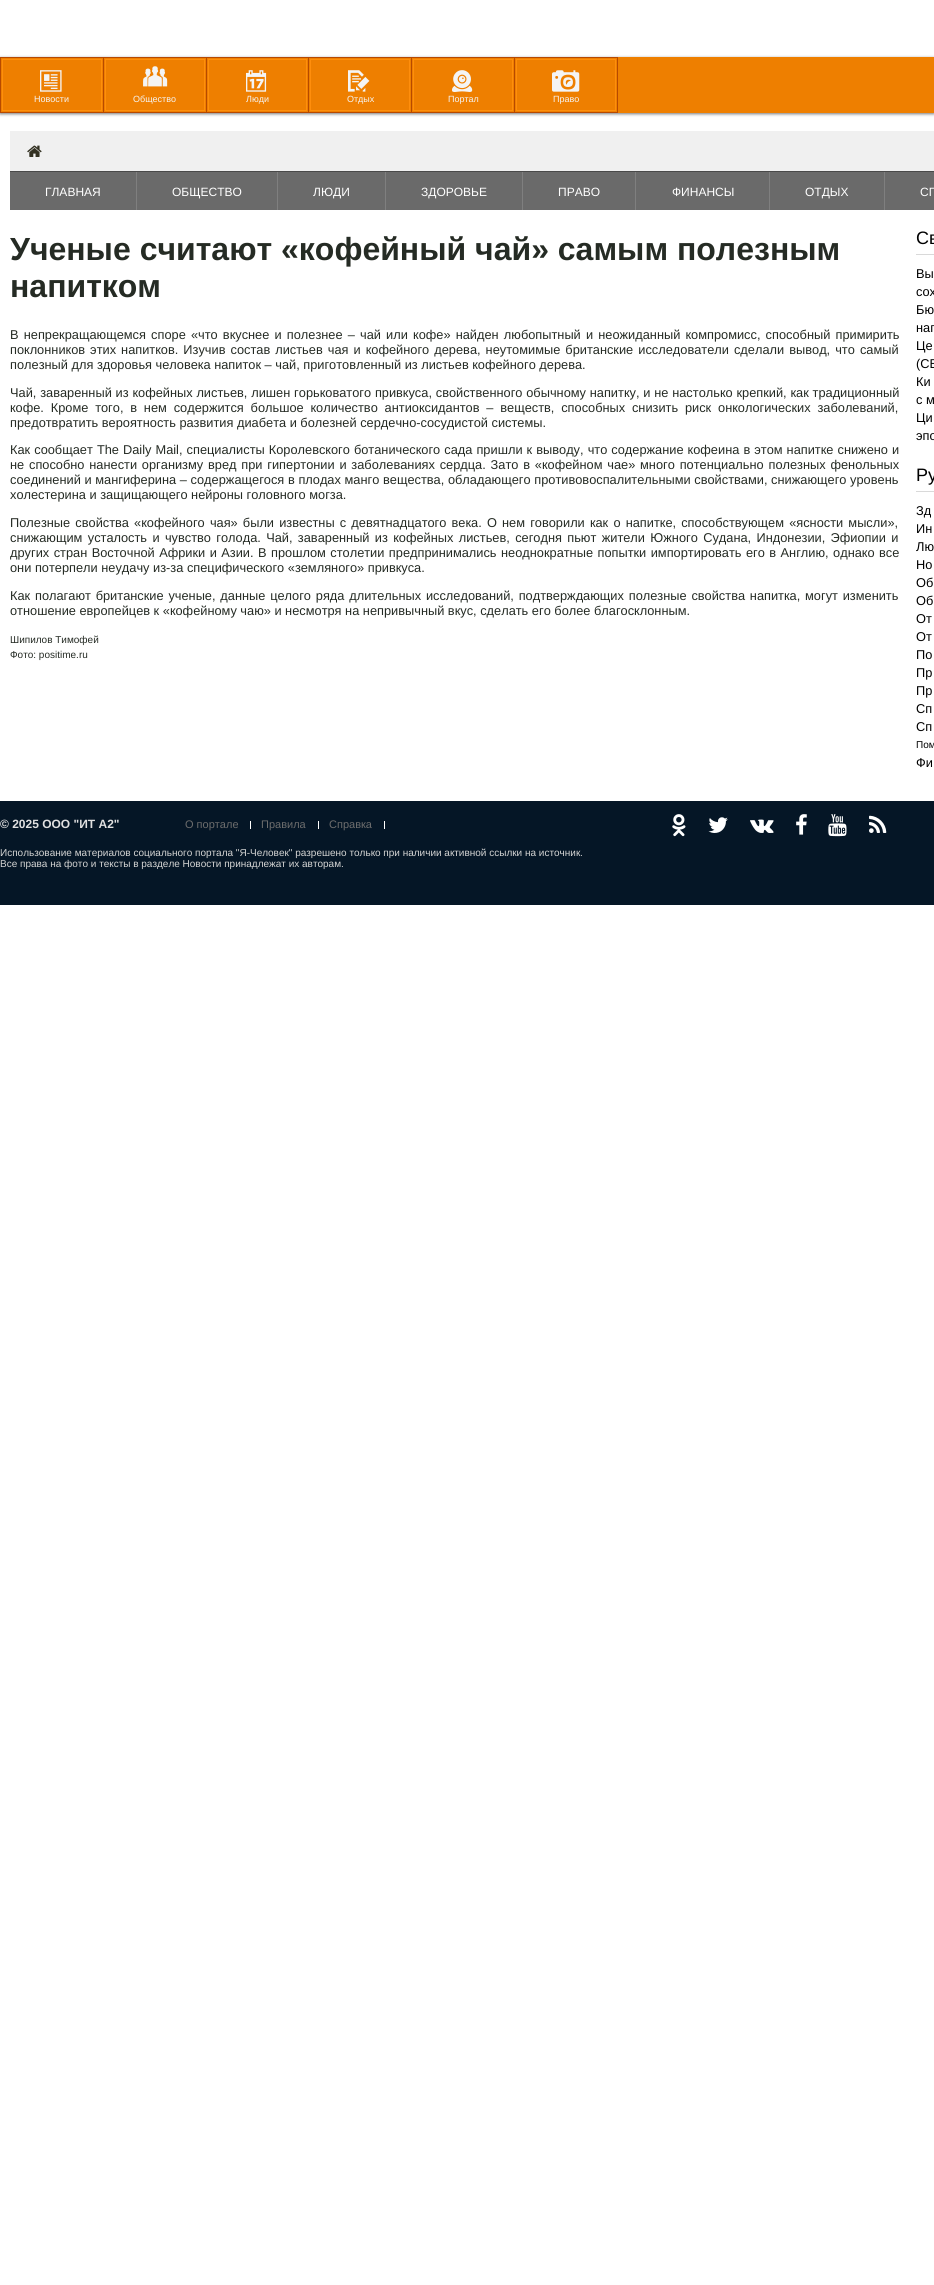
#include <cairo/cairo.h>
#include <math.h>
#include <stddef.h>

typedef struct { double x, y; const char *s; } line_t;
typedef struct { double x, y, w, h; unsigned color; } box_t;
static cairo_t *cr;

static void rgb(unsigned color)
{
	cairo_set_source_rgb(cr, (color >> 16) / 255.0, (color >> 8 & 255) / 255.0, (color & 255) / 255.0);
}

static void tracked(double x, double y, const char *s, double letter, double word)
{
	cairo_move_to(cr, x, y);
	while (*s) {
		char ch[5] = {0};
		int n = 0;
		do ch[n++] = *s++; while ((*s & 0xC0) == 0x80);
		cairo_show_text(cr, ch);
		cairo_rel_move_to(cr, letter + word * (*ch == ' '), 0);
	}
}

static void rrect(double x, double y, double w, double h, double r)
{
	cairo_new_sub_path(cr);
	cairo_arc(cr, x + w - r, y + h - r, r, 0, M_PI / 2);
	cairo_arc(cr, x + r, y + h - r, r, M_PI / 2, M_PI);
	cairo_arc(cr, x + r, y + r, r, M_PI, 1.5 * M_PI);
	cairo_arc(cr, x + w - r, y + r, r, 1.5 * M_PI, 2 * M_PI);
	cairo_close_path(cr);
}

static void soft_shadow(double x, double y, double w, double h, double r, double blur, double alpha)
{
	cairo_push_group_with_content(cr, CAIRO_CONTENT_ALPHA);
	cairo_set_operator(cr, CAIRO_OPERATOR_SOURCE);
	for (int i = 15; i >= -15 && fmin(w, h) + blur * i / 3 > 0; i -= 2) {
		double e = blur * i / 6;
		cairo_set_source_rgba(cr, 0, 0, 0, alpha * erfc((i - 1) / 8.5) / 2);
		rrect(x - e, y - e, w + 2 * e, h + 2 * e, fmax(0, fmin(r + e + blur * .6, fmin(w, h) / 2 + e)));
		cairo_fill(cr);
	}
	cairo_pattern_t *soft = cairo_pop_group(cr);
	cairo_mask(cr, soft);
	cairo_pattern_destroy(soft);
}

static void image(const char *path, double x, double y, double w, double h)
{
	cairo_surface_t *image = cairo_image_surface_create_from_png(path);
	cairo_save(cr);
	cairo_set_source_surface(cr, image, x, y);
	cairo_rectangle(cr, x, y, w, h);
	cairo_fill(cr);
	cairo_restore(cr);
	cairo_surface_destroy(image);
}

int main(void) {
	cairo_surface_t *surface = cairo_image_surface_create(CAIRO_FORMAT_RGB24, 934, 2285);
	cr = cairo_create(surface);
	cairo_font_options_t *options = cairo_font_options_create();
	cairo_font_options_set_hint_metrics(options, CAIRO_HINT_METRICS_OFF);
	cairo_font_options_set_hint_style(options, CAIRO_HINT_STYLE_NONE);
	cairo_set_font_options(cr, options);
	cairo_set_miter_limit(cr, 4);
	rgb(0xffffff);
	cairo_paint(cr);
	rgb(0x777777);
	soft_shadow(0, 58, 934, 56, 0, 1.5, 1);
	rgb(0xee7f00);
	cairo_rectangle(cr, 1, 57, 933, 56);
	cairo_fill(cr);
	cairo_rectangle(cr, 0.5, 57.5, 103, 55);
	rgb(0xb74900);
	cairo_set_line_width(cr, 1);
	cairo_stroke(cr);
	cairo_rectangle(cr, 2.5, 59.5, 99, 51);
	rgb(0xff8e0c);
	cairo_stroke(cr);
	image("img/1.png", 40, 70, 22, 22);
	{
		static const box_t items[] = {
			{104, 57, 514, 1, 0xb74900},
			{206, 57, 1, 56, 0xb74900},
			{104, 112, 103, 1, 0xb74900},
		};
		for (size_t i = 0; i < sizeof items / sizeof *items; i++) {
			rgb(items[i].color);
			cairo_rectangle(cr, items[i].x, items[i].y, items[i].w, items[i].h);
			cairo_fill(cr);
		}
	}
	cairo_rectangle(cr, 105.5, 59.5, 99, 51);
	rgb(0xff8e0c);
	cairo_stroke(cr);
	image("img/2.png", 143, 66, 25, 21);
	rgb(0xb74900);
	cairo_rectangle(cr, 308, 57, 1, 56);
	cairo_fill(cr);
	cairo_rectangle(cr, 207, 112, 102, 1);
	cairo_fill(cr);
	cairo_rectangle(cr, 208.5, 59.5, 98, 51);
	rgb(0xff8e0c);
	cairo_stroke(cr);
	image("img/3.png", 246, 70, 21, 22);
	rgb(0xb74900);
	cairo_rectangle(cr, 411, 57, 1, 56);
	cairo_fill(cr);
	cairo_rectangle(cr, 309, 112, 103, 1);
	cairo_fill(cr);
	cairo_rectangle(cr, 310.5, 59.5, 99, 51);
	rgb(0xff8e0c);
	cairo_stroke(cr);
	image("img/4.png", 348, 70, 22, 22);
	rgb(0xb74900);
	cairo_rectangle(cr, 514, 57, 1, 56);
	cairo_fill(cr);
	cairo_rectangle(cr, 412, 112, 103, 1);
	cairo_fill(cr);
	cairo_rectangle(cr, 413.5, 59.5, 99, 51);
	rgb(0xff8e0c);
	cairo_stroke(cr);
	image("img/5.png", 452, 70, 21, 22);
	rgb(0xb74900);
	cairo_rectangle(cr, 617, 57, 1, 56);
	cairo_fill(cr);
	cairo_rectangle(cr, 515, 112, 103, 1);
	cairo_fill(cr);
	cairo_rectangle(cr, 516.5, 59.5, 99, 51);
	rgb(0xff8e0c);
	cairo_stroke(cr);
	image("img/6.png", 552, 70, 28, 22);
	rgb(0xf0f0f0);
	cairo_rectangle(cr, 10, 131, 924, 40);
	cairo_fill(cr);
	image("img/7.png", 27, 145, 15, 12);
	{
		static const box_t items[] = {
			{10, 172, 924, 38, 0x6a6a6a},
			{10, 171, 924, 1, 0x494949},
			{136, 172, 1, 38, 0x7f7f7f},
			{277, 172, 1, 38, 0x7f7f7f},
			{385, 172, 1, 38, 0x7f7f7f},
			{522, 172, 1, 38, 0x7f7f7f},
			{635, 172, 1, 38, 0x7f7f7f},
			{769, 172, 1, 38, 0x7f7f7f},
			{884, 172, 1, 38, 0x7f7f7f},
			{916, 254, 18, 1, 0xd9d9d9},
			{916, 491, 18, 1, 0xd9d9d9},
			{0, 801, 934, 104, 0x051626},
			{250, 821, 1, 8, 0xffffff},
			{318, 821, 1, 8, 0xffffff},
			{384, 821, 1, 8, 0xffffff},
		};
		for (size_t i = 0; i < sizeof items / sizeof *items; i++) {
			rgb(items[i].color);
			cairo_rectangle(cr, items[i].x, items[i].y, items[i].w, items[i].h);
			cairo_fill(cr);
		}
	}
	image("img/8.png", 672, 814, 14, 23);
	image("img/9.png", 708, 817, 20, 16);
	image("img/10.png", 750, 819, 24, 14);
	image("img/11.png", 796, 814, 11, 21);
	image("img/12.png", 828, 814, 19, 23);
	image("img/13.png", 869, 815, 18, 18);
	cairo_select_font_face(cr, "Liberation Sans", CAIRO_FONT_SLANT_NORMAL, CAIRO_FONT_WEIGHT_NORMAL);
	cairo_set_font_size(cr, 9);
	rgb(0xf4f4f4);
	{
		static const line_t items[] = {
			{34, 102, "Новости"},
			{133, 102, "Общество"},
			{246, 102, "Люди"},
			{347, 102, "Отдых"},
			{448, 102, "Портал"},
			{553, 102, "Право"},
		};
		for (size_t i = 0; i < sizeof items / sizeof *items; i++) {
			cairo_move_to(cr, items[i].x, items[i].y);
			cairo_show_text(cr, items[i].s);
		}
	}
	cairo_set_font_size(cr, 12);
	rgb(0xffffff);
	{
		static const line_t items[] = {
			{45, 196, "ГЛАВНАЯ"},
			{172, 196, "ОБЩЕСТВО"},
			{313, 196, "ЛЮДИ"},
			{421, 196, "ЗДОРОВЬЕ"},
			{558, 196, "ПРАВО"},
			{672, 196, "ФИНАНСЫ"},
			{805, 196, "ОТДЫХ"},
			{920, 196, "СП"},
		};
		for (size_t i = 0; i < sizeof items / sizeof *items; i++) {
			cairo_move_to(cr, items[i].x, items[i].y);
			cairo_show_text(cr, items[i].s);
		}
	}
	cairo_select_font_face(cr, "Liberation Sans", CAIRO_FONT_SLANT_NORMAL, CAIRO_FONT_WEIGHT_BOLD);
	cairo_set_font_size(cr, 32);
	rgb(0x252b24);
	cairo_move_to(cr, 10, 260);
	cairo_show_text(cr, "Ученые считают «кофейный чай» самым полезным");
	cairo_move_to(cr, 10, 297);
	cairo_show_text(cr, "напитком");
	cairo_select_font_face(cr, "Liberation Sans", CAIRO_FONT_SLANT_NORMAL, CAIRO_FONT_WEIGHT_NORMAL);
	cairo_set_font_size(cr, 12.8);
	tracked(10, 339, "В непрекращающемся споре «что вкуснее и полезнее – чай или кофе» найден любопытный и неожиданный компромисс, способный примирить", 0, 1.6);
	tracked(10, 354, "поклонников этих напитков. Изучив состав листьев чая и кофейного дерева, неутомимые британские исследователи сделали вывод, что самый", 0, 1.5);
	cairo_move_to(cr, 10, 369);
	cairo_show_text(cr, "полезный для здоровья человека напиток – чай, приготовленный из листьев кофейного дерева.");
	tracked(10, 397, "Чай, заваренный из кофейных листьев, лишен горьковатого привкуса, свойственного обычному напитку, и не настолько крепкий, как традиционный", 0, 0.25);
	tracked(10, 412, "кофе. Кроме того, в нем содержится большое количество антиоксидантов – веществ, способных снизить риск онкологических заболеваний,", 0, 3.25);
	cairo_move_to(cr, 10, 427);
	cairo_show_text(cr, "предотвратить вероятность развития диабета и болезней сердечно-сосудистой системы.");
	tracked(10, 454, "Как сообщает The Daily Mail, специалисты Королевского ботанического сада пришли к выводу, что содержание кофеина в этом напитке снижено и", 0, 0.5);
	tracked(10, 469, "не способно нанести организму вред при гипертонии и заболеваниях сердца. Зато в «кофейном чае» много потенциально полезных фенольных", 0, 1.25);
	tracked(10, 484, "соединений и мангиферина – содержащегося в плодах манго вещества, обладающего противовоспалительными свойствами, снижающего уровень", 0, 0.1);
	cairo_move_to(cr, 10, 499);
	cairo_show_text(cr, "холестерина и защищающего нейроны головного могза.");
	tracked(10, 527, "Полезные свойства «кофейного чая» были известны с девятнадцатого века. О нем говорили как о напитке, способствующем «ясности мысли»,", 0, 1.6);
	tracked(10, 542, "снижающим усталость и чувство голода. Чай, заваренный из кофейных листьев, сегодня пьют жители Южного Судана, Индонезии, Эфиопии и", 0, 1.8);
	tracked(10, 557, "других стран Восточной Африки и Азии. В прошлом столетии предпринимались неоднократные попытки импортировать его в Англию, однако все", 0, 0.9);
	cairo_move_to(cr, 10, 572);
	cairo_show_text(cr, "они потерпели неудачу из-за специфического «земляного» привкуса.");
	tracked(10, 600, "Как полагают британские ученые, данные целого ряда длительных исследований, подтверждающих полезные свойства напитка, могут изменить", 0, 1.25);
	cairo_move_to(cr, 10, 615);
	cairo_show_text(cr, "отношение европейцев к «кофейному чаю» и несмотря на непривычный вкус, сделать его более благосклонным.");
	cairo_set_font_size(cr, 10);
	cairo_move_to(cr, 10, 643);
	cairo_show_text(cr, "Шипилов Тимофей");
	cairo_move_to(cr, 10, 658);
	cairo_show_text(cr, "Фото: positime.ru");
	cairo_set_font_size(cr, 18);
	rgb(0x000000);
	cairo_move_to(cr, 916, 244);
	cairo_show_text(cr, "Св");
	cairo_set_font_size(cr, 12.8);
	{
		static const line_t items[] = {
			{916, 278, "Вы"},
			{916, 296, "сох"},
			{916, 314, "Бю"},
			{916, 332, "нап"},
			{916, 350, "Це"},
			{916, 368, "(CB"},
			{916, 386, "Ки"},
			{916, 404, "с м"},
			{916, 422, "Ци"},
			{916, 440, "эпо"},
		};
		for (size_t i = 0; i < sizeof items / sizeof *items; i++) {
			cairo_move_to(cr, items[i].x, items[i].y);
			cairo_show_text(cr, items[i].s);
		}
	}
	cairo_set_font_size(cr, 18);
	cairo_move_to(cr, 916, 481);
	cairo_show_text(cr, "Ру");
	cairo_set_font_size(cr, 12.8);
	{
		static const line_t items[] = {
			{916, 515, "Зд"},
			{916, 533, "Ин"},
			{916, 551, "Лю"},
			{916, 569, "Но"},
			{916, 587, "Об"},
			{916, 605, "Об"},
			{916, 623, "От"},
			{916, 641, "От"},
			{916, 659, "По"},
			{916, 677, "Пр"},
			{916, 695, "Пр"},
			{916, 713, "Сп"},
			{916, 731, "Сп"},
		};
		for (size_t i = 0; i < sizeof items / sizeof *items; i++) {
			cairo_move_to(cr, items[i].x, items[i].y);
			cairo_show_text(cr, items[i].s);
		}
	}
	cairo_set_font_size(cr, 10);
	cairo_move_to(cr, 916, 748);
	cairo_show_text(cr, "Пом");
	cairo_set_font_size(cr, 12.8);
	cairo_move_to(cr, 916, 767);
	cairo_show_text(cr, "Фи");
	cairo_select_font_face(cr, "Liberation Sans", CAIRO_FONT_SLANT_NORMAL, CAIRO_FONT_WEIGHT_BOLD);
	cairo_set_font_size(cr, 12);
	rgb(0xe0e0e0);
	cairo_move_to(cr, 0, 828);
	cairo_show_text(cr, "© 2025 ООО \"ИТ А2\"");
	cairo_select_font_face(cr, "Liberation Sans", CAIRO_FONT_SLANT_NORMAL, CAIRO_FONT_WEIGHT_NORMAL);
	cairo_set_font_size(cr, 11);
	rgb(0x6d6d6d);
	{
		static const line_t items[] = {
			{185, 828, "О портале"},
			{261, 828, "Правила"},
			{329, 828, "Справка"},
		};
		for (size_t i = 0; i < sizeof items / sizeof *items; i++) {
			cairo_move_to(cr, items[i].x, items[i].y);
			cairo_show_text(cr, items[i].s);
		}
	}
	cairo_set_font_size(cr, 10);
	rgb(0xd5d5d4);
	cairo_move_to(cr, 0, 856);
	cairo_show_text(cr, "Использование материалов социального портала \"Я-Человек\" разрешено только при наличии активной ссылки на источник.");
	cairo_move_to(cr, 0, 867);
	cairo_show_text(cr, "Все права на фото и тексты в разделе Новости принадлежат их авторам.");
	cairo_surface_write_to_png(surface, "page.png");
	cairo_font_options_destroy(options);
	cairo_destroy(cr);
	cairo_surface_destroy(surface);
	return 0;
}
